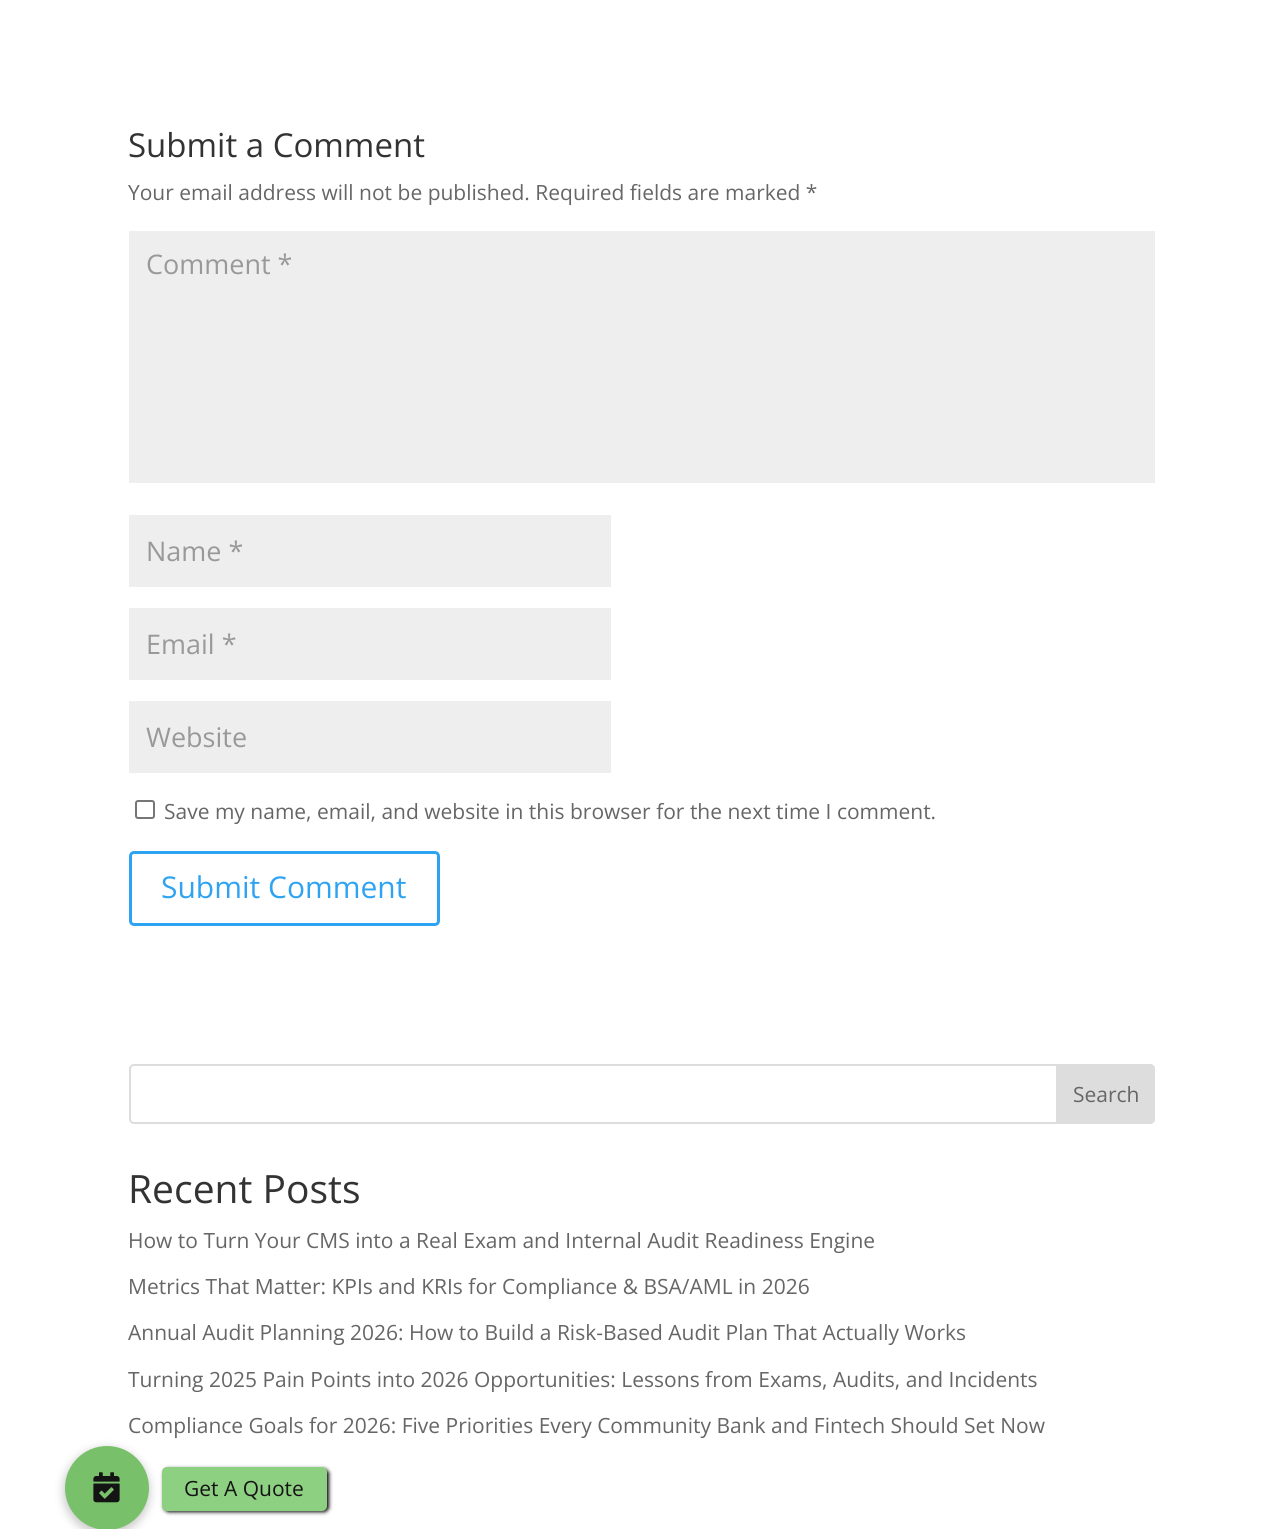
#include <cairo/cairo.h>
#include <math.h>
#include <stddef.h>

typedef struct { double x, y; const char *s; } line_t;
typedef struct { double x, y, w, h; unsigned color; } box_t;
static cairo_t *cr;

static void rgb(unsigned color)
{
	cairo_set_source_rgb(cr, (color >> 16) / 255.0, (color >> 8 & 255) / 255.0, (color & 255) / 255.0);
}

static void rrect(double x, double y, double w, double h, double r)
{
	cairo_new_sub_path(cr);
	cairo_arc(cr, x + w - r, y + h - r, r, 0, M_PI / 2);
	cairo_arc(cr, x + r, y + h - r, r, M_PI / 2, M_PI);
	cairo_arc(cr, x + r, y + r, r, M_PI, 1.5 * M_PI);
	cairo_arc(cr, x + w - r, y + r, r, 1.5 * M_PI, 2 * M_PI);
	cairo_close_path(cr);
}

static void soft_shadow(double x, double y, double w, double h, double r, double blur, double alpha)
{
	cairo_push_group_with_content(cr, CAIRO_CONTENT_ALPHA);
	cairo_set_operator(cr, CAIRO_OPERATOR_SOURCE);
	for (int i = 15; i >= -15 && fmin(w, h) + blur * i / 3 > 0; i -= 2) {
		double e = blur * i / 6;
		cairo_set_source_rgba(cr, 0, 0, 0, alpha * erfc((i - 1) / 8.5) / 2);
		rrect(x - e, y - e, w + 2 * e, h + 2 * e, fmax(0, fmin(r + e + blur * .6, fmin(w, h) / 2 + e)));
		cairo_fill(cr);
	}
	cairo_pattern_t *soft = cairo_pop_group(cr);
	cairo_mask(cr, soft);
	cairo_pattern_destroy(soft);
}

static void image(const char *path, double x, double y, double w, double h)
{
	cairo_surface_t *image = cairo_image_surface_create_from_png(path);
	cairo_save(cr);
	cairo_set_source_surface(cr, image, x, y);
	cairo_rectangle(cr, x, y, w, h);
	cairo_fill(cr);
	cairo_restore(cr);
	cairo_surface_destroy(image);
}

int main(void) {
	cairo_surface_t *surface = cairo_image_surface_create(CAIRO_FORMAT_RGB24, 1284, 1529);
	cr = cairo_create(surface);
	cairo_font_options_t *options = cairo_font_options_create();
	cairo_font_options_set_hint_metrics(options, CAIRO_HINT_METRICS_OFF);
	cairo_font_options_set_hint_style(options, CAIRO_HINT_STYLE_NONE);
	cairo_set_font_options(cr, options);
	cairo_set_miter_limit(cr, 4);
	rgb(0xffffff);
	cairo_paint(cr);
	{
		static const box_t items[] = {
			{129, 231, 1026, 252, 0xeeeeee},
			{129, 515, 482, 72, 0xeeeeee},
			{129, 608, 482, 72, 0xeeeeee},
			{129, 701, 482, 72, 0xeeeeee},
		};
		for (size_t i = 0; i < sizeof items / sizeof *items; i++) {
			rgb(items[i].color);
			cairo_rectangle(cr, items[i].x, items[i].y, items[i].w, items[i].h);
			cairo_fill(cr);
		}
	}
	rrect(136, 801, 18, 17, 2);
	rgb(0x767676);
	cairo_stroke(cr);
	rrect(130.5, 852.5, 308, 72, 3.5);
	rgb(0x2ea3f2);
	cairo_set_line_width(cr, 3);
	cairo_stroke(cr);
	rrect(130, 1065, 1024, 58, 4);
	rgb(0xdddddd);
	cairo_set_line_width(cr, 2);
	cairo_stroke(cr);
	cairo_new_path(cr);
	cairo_move_to(cr, 1057, 1065);
	cairo_line_to(cr, 1150, 1065);
	cairo_curve_to(cr, 1152, 1065, 1154, 1067, 1154, 1069);
	cairo_line_to(cr, 1154, 1119);
	cairo_curve_to(cr, 1154, 1121, 1152, 1123, 1150, 1123);
	cairo_line_to(cr, 1057, 1123);
	cairo_close_path(cr);
	cairo_fill_preserve(cr);
	cairo_stroke(cr);
	rgb(0x000000);
	soft_shadow(63, 1448, 87, 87, 43.5, 4.5, 0.2);
	rgb(0x78c06a);
	cairo_arc(cr, 107, 1488, 42, 0, 2 * M_PI);
	cairo_fill(cr);
	image("img/1.png", 93, 1472, 27, 31);
	rgb(0x000000);
	soft_shadow(164, 1469, 165, 43, 5, 2, 1);
	rgb(0x8ed081);
	rrect(162, 1467, 165, 44, 5);
	cairo_fill(cr);
	cairo_select_font_face(cr, "Open Sans", CAIRO_FONT_SLANT_NORMAL, CAIRO_FONT_WEIGHT_NORMAL);
	cairo_set_font_size(cr, 33);
	rgb(0x333333);
	cairo_move_to(cr, 128, 157);
	cairo_show_text(cr, "Submit a Comment");
	cairo_set_font_size(cr, 21);
	rgb(0x666666);
	cairo_move_to(cr, 128, 200);
	cairo_show_text(cr, "Your email address will not be published. Required fields are marked *");
	cairo_set_font_size(cr, 27);
	rgb(0x999999);
	{
		static const line_t items[] = {
			{146, 274, "Comment *"},
			{146, 561, "Name *"},
			{146, 654, "Email *"},
			{146, 747, "Website"},
		};
		for (size_t i = 0; i < sizeof items / sizeof *items; i++) {
			cairo_move_to(cr, items[i].x, items[i].y);
			cairo_show_text(cr, items[i].s);
		}
	}
	cairo_set_font_size(cr, 21);
	rgb(0x666666);
	cairo_move_to(cr, 164, 819);
	cairo_show_text(cr, "Save my name, email, and website in this browser for the next time I comment.");
	cairo_set_font_size(cr, 30);
	rgb(0x2ea3f2);
	cairo_move_to(cr, 161, 898);
	cairo_show_text(cr, "Submit Comment");
	cairo_set_font_size(cr, 21);
	rgb(0x666666);
	cairo_move_to(cr, 1073, 1102);
	cairo_show_text(cr, "Search");
	cairo_set_font_size(cr, 39);
	rgb(0x333333);
	cairo_move_to(cr, 128, 1203);
	cairo_show_text(cr, "Recent Posts");
	cairo_set_font_size(cr, 21);
	rgb(0x666666);
	{
		static const line_t items[] = {
			{128, 1248, "How to Turn Your CMS into a Real Exam and Internal Audit Readiness Engine"},
			{128, 1294, "Metrics That Matter: KPIs and KRIs for Compliance & BSA/AML in 2026"},
			{128, 1340, "Annual Audit Planning 2026: How to Build a Risk-Based Audit Plan That Actually Works"},
			{128, 1387, "Turning 2025 Pain Points into 2026 Opportunities: Lessons from Exams, Audits, and Incidents"},
			{128, 1433, "Compliance Goals for 2026: Five Priorities Every Community Bank and Fintech Should Set Now"},
		};
		for (size_t i = 0; i < sizeof items / sizeof *items; i++) {
			cairo_move_to(cr, items[i].x, items[i].y);
			cairo_show_text(cr, items[i].s);
		}
	}
	rgb(0x141414);
	cairo_move_to(cr, 184, 1496);
	cairo_show_text(cr, "Get A Quote");
	cairo_surface_write_to_png(surface, "page.png");
	cairo_font_options_destroy(options);
	cairo_destroy(cr);
	cairo_surface_destroy(surface);
	return 0;
}
